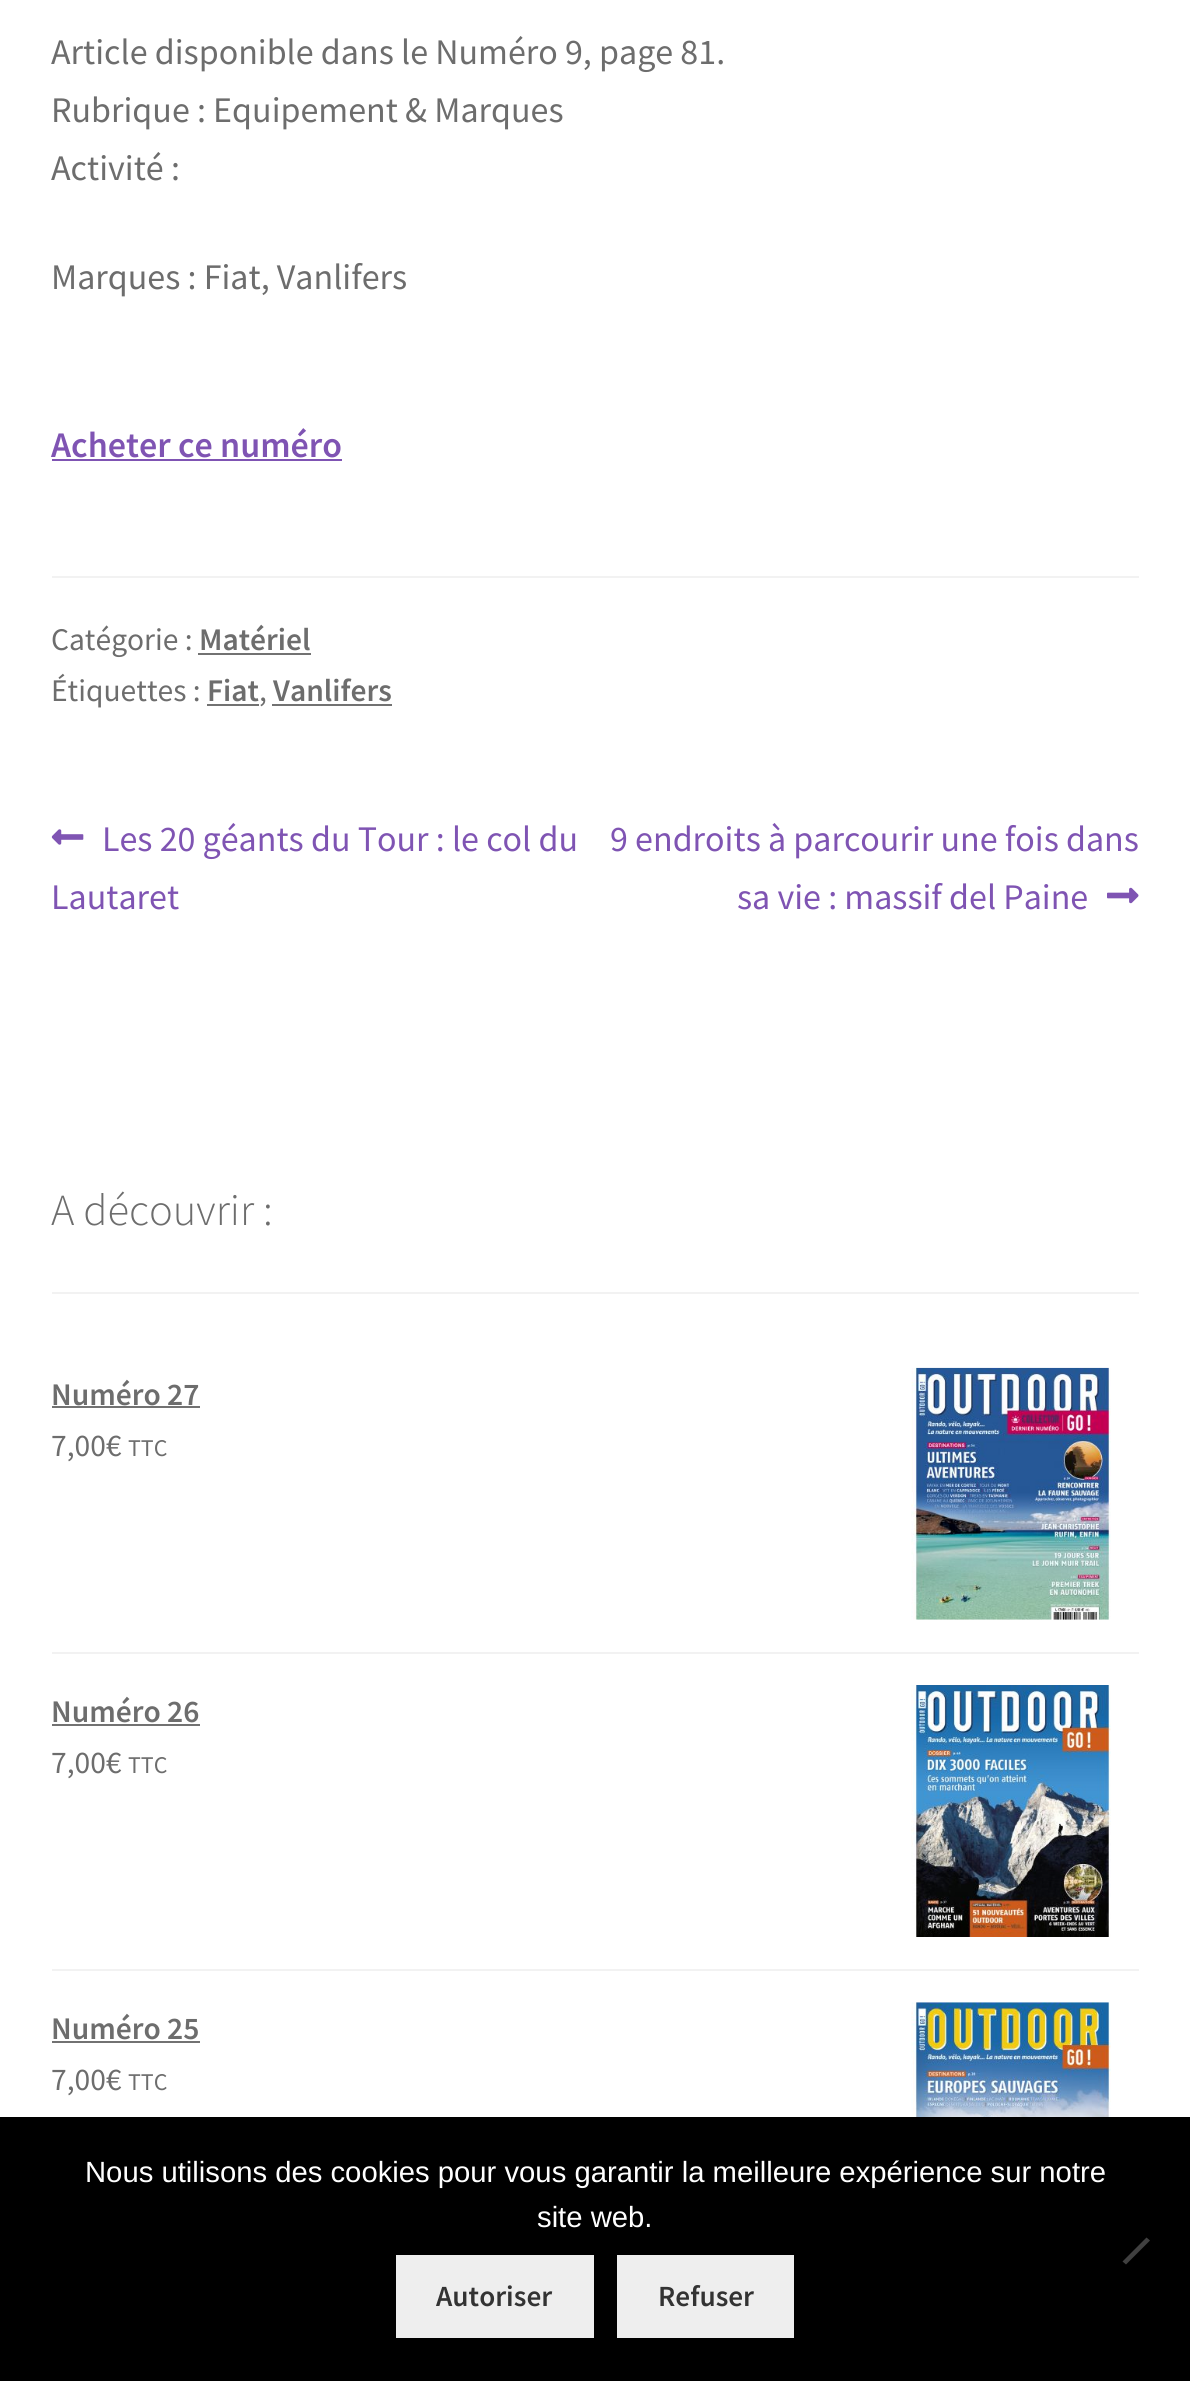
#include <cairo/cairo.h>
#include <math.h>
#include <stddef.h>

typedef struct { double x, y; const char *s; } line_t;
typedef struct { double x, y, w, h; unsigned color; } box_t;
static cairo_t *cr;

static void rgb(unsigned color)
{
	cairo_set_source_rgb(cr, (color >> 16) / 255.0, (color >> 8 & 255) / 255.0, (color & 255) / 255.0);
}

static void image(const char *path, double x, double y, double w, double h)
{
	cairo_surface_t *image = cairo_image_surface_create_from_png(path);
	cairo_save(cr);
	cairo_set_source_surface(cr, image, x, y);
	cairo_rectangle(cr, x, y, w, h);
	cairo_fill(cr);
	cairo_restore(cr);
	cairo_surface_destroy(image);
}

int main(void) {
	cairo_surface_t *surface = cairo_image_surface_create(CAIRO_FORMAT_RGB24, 1190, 2381);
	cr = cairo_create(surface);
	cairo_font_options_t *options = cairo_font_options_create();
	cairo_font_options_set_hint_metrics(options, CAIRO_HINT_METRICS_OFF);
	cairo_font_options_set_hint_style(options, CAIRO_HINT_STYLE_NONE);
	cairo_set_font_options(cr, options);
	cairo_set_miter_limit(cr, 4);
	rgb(0xffffff);
	cairo_paint(cr);
	{
		static const box_t items[] = {
			{52, 459, 290, 2, 0x7f54b3},
			{52, 576, 1087, 2, 0xf2f2f2},
			{198, 653, 113, 2, 0x727272},
			{207, 704, 52, 2, 0x727272},
			{272, 704, 120, 2, 0x727272},
		};
		for (size_t i = 0; i < sizeof items / sizeof *items; i++) {
			rgb(items[i].color);
			cairo_rectangle(cr, items[i].x, items[i].y, items[i].w, items[i].h);
			cairo_fill(cr);
		}
	}
	image("img/1.png", 51, 829, 33, 16);
	image("img/2.png", 1107, 887, 32, 17);
	{
		static const box_t items[] = {
			{52, 1292, 1087, 2, 0xf2f2f2},
			{52, 1652, 1087, 2, 0xf2f2f2},
			{52, 1406, 148, 2, 0x727272},
		};
		for (size_t i = 0; i < sizeof items / sizeof *items; i++) {
			rgb(items[i].color);
			cairo_rectangle(cr, items[i].x, items[i].y, items[i].w, items[i].h);
			cairo_fill(cr);
		}
	}
	image("img/3.png", 911, 1367, 200, 253);
	rgb(0xf2f2f2);
	cairo_rectangle(cr, 52, 1969, 1087, 2);
	cairo_fill(cr);
	rgb(0x727272);
	cairo_rectangle(cr, 52, 1724, 148, 2);
	cairo_fill(cr);
	image("img/4.png", 911, 1685, 200, 252);
	cairo_rectangle(cr, 52, 2041, 148, 2);
	cairo_fill(cr);
	image("img/5.png", 911, 2002, 200, 115);
	rgb(0x000000);
	cairo_rectangle(cr, 0, 2117, 1190, 264);
	cairo_fill(cr);
	rgb(0x404040);
	cairo_new_path(cr);
	cairo_move_to(cr, 1146.5, 2237.5);
	cairo_line_to(cr, 1150, 2240.5);
	cairo_line_to(cr, 1126, 2264.5);
	cairo_line_to(cr, 1122.5, 2261.5);
	cairo_close_path(cr);
	cairo_fill(cr);
	rgb(0xeeeeee);
	cairo_rectangle(cr, 396, 2255, 198, 83);
	cairo_fill(cr);
	cairo_rectangle(cr, 617, 2255, 177, 83);
	cairo_fill(cr);
	cairo_select_font_face(cr, "Source Sans Pro", CAIRO_FONT_SLANT_NORMAL, CAIRO_FONT_WEIGHT_NORMAL);
	cairo_set_font_size(cr, 36);
	rgb(0x6d6d6d);
	{
		static const line_t items[] = {
			{51, 64, "Article disponible dans le Numéro 9, page 81."},
			{51, 122, "Rubrique : Equipement & Marques"},
			{51, 180, "Activité :"},
			{51, 289, "Marques : Fiat, Vanlifers"},
		};
		for (size_t i = 0; i < sizeof items / sizeof *items; i++) {
			cairo_move_to(cr, items[i].x, items[i].y);
			cairo_show_text(cr, items[i].s);
		}
	}
	cairo_select_font_face(cr, "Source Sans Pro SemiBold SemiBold", CAIRO_FONT_SLANT_NORMAL, CAIRO_FONT_WEIGHT_NORMAL);
	rgb(0x7f54b3);
	cairo_move_to(cr, 51, 457);
	cairo_show_text(cr, "Acheter ce numéro");
	cairo_select_font_face(cr, "Source Sans Pro", CAIRO_FONT_SLANT_NORMAL, CAIRO_FONT_WEIGHT_NORMAL);
	cairo_set_font_size(cr, 31.5);
	rgb(0x6d6d6d);
	cairo_move_to(cr, 51, 650);
	cairo_show_text(cr, "Catégorie :");
	cairo_select_font_face(cr, "Source Sans Pro SemiBold SemiBold", CAIRO_FONT_SLANT_NORMAL, CAIRO_FONT_WEIGHT_NORMAL);
	cairo_move_to(cr, 199, 650);
	cairo_show_text(cr, "Matériel");
	cairo_select_font_face(cr, "Source Sans Pro", CAIRO_FONT_SLANT_NORMAL, CAIRO_FONT_WEIGHT_NORMAL);
	cairo_move_to(cr, 51, 701);
	cairo_show_text(cr, "Étiquettes :");
	cairo_select_font_face(cr, "Source Sans Pro SemiBold SemiBold", CAIRO_FONT_SLANT_NORMAL, CAIRO_FONT_WEIGHT_NORMAL);
	cairo_move_to(cr, 207, 701);
	cairo_show_text(cr, "Fiat");
	cairo_select_font_face(cr, "Source Sans Pro", CAIRO_FONT_SLANT_NORMAL, CAIRO_FONT_WEIGHT_NORMAL);
	cairo_move_to(cr, 259, 701);
	cairo_show_text(cr, ",");
	cairo_select_font_face(cr, "Source Sans Pro SemiBold SemiBold", CAIRO_FONT_SLANT_NORMAL, CAIRO_FONT_WEIGHT_NORMAL);
	cairo_move_to(cr, 273, 701);
	cairo_show_text(cr, "Vanlifers");
	cairo_select_font_face(cr, "Source Sans Pro", CAIRO_FONT_SLANT_NORMAL, CAIRO_FONT_WEIGHT_NORMAL);
	cairo_set_font_size(cr, 36);
	rgb(0x7f54b3);
	{
		static const line_t items[] = {
			{102, 851, "Les 20 géants du Tour : le col du"},
			{51, 909, "Lautaret"},
			{610, 851, "9 endroits à parcourir une fois dans"},
			{737, 909, "sa vie : massif del Paine"},
		};
		for (size_t i = 0; i < sizeof items / sizeof *items; i++) {
			cairo_move_to(cr, items[i].x, items[i].y);
			cairo_show_text(cr, items[i].s);
		}
	}
	cairo_select_font_face(cr, "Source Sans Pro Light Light", CAIRO_FONT_SLANT_NORMAL, CAIRO_FONT_WEIGHT_NORMAL);
	cairo_set_font_size(cr, 44.5);
	rgb(0x6d6d6d);
	cairo_move_to(cr, 51, 1225);
	cairo_show_text(cr, "A découvrir :");
	cairo_select_font_face(cr, "Source Sans Pro SemiBold SemiBold", CAIRO_FONT_SLANT_NORMAL, CAIRO_FONT_WEIGHT_NORMAL);
	cairo_set_font_size(cr, 31.5);
	cairo_move_to(cr, 51, 1405);
	cairo_show_text(cr, "Numéro 27");
	cairo_select_font_face(cr, "Source Sans Pro", CAIRO_FONT_SLANT_NORMAL, CAIRO_FONT_WEIGHT_NORMAL);
	cairo_move_to(cr, 51, 1456);
	cairo_show_text(cr, "7,00€");
	cairo_set_font_size(cr, 24);
	cairo_move_to(cr, 128, 1456);
	cairo_show_text(cr, "TTC");
	cairo_select_font_face(cr, "Source Sans Pro SemiBold SemiBold", CAIRO_FONT_SLANT_NORMAL, CAIRO_FONT_WEIGHT_NORMAL);
	cairo_set_font_size(cr, 31.5);
	cairo_move_to(cr, 51, 1722);
	cairo_show_text(cr, "Numéro 26");
	cairo_select_font_face(cr, "Source Sans Pro", CAIRO_FONT_SLANT_NORMAL, CAIRO_FONT_WEIGHT_NORMAL);
	cairo_move_to(cr, 51, 1773);
	cairo_show_text(cr, "7,00€");
	cairo_set_font_size(cr, 24);
	cairo_move_to(cr, 128, 1773);
	cairo_show_text(cr, "TTC");
	cairo_select_font_face(cr, "Source Sans Pro SemiBold SemiBold", CAIRO_FONT_SLANT_NORMAL, CAIRO_FONT_WEIGHT_NORMAL);
	cairo_set_font_size(cr, 31.5);
	cairo_move_to(cr, 51, 2039);
	cairo_show_text(cr, "Numéro 25");
	cairo_select_font_face(cr, "Source Sans Pro", CAIRO_FONT_SLANT_NORMAL, CAIRO_FONT_WEIGHT_NORMAL);
	cairo_move_to(cr, 51, 2090);
	cairo_show_text(cr, "7,00€");
	cairo_set_font_size(cr, 24);
	cairo_move_to(cr, 128, 2090);
	cairo_show_text(cr, "TTC");
	cairo_select_font_face(cr, "Liberation Sans", CAIRO_FONT_SLANT_NORMAL, CAIRO_FONT_WEIGHT_NORMAL);
	cairo_set_font_size(cr, 29.25);
	rgb(0xffffff);
	cairo_move_to(cr, 85, 2182);
	cairo_show_text(cr, "Nous utilisons des cookies pour vous garantir la meilleure expérience sur notre");
	cairo_move_to(cr, 537, 2227);
	cairo_show_text(cr, "site web.");
	cairo_select_font_face(cr, "Source Sans Pro SemiBold SemiBold", CAIRO_FONT_SLANT_NORMAL, CAIRO_FONT_WEIGHT_NORMAL);
	rgb(0x333333);
	cairo_move_to(cr, 436, 2306);
	cairo_show_text(cr, "Autoriser");
	cairo_move_to(cr, 658, 2306);
	cairo_show_text(cr, "Refuser");
	cairo_surface_write_to_png(surface, "page.png");
	cairo_font_options_destroy(options);
	cairo_destroy(cr);
	cairo_surface_destroy(surface);
	return 0;
}
